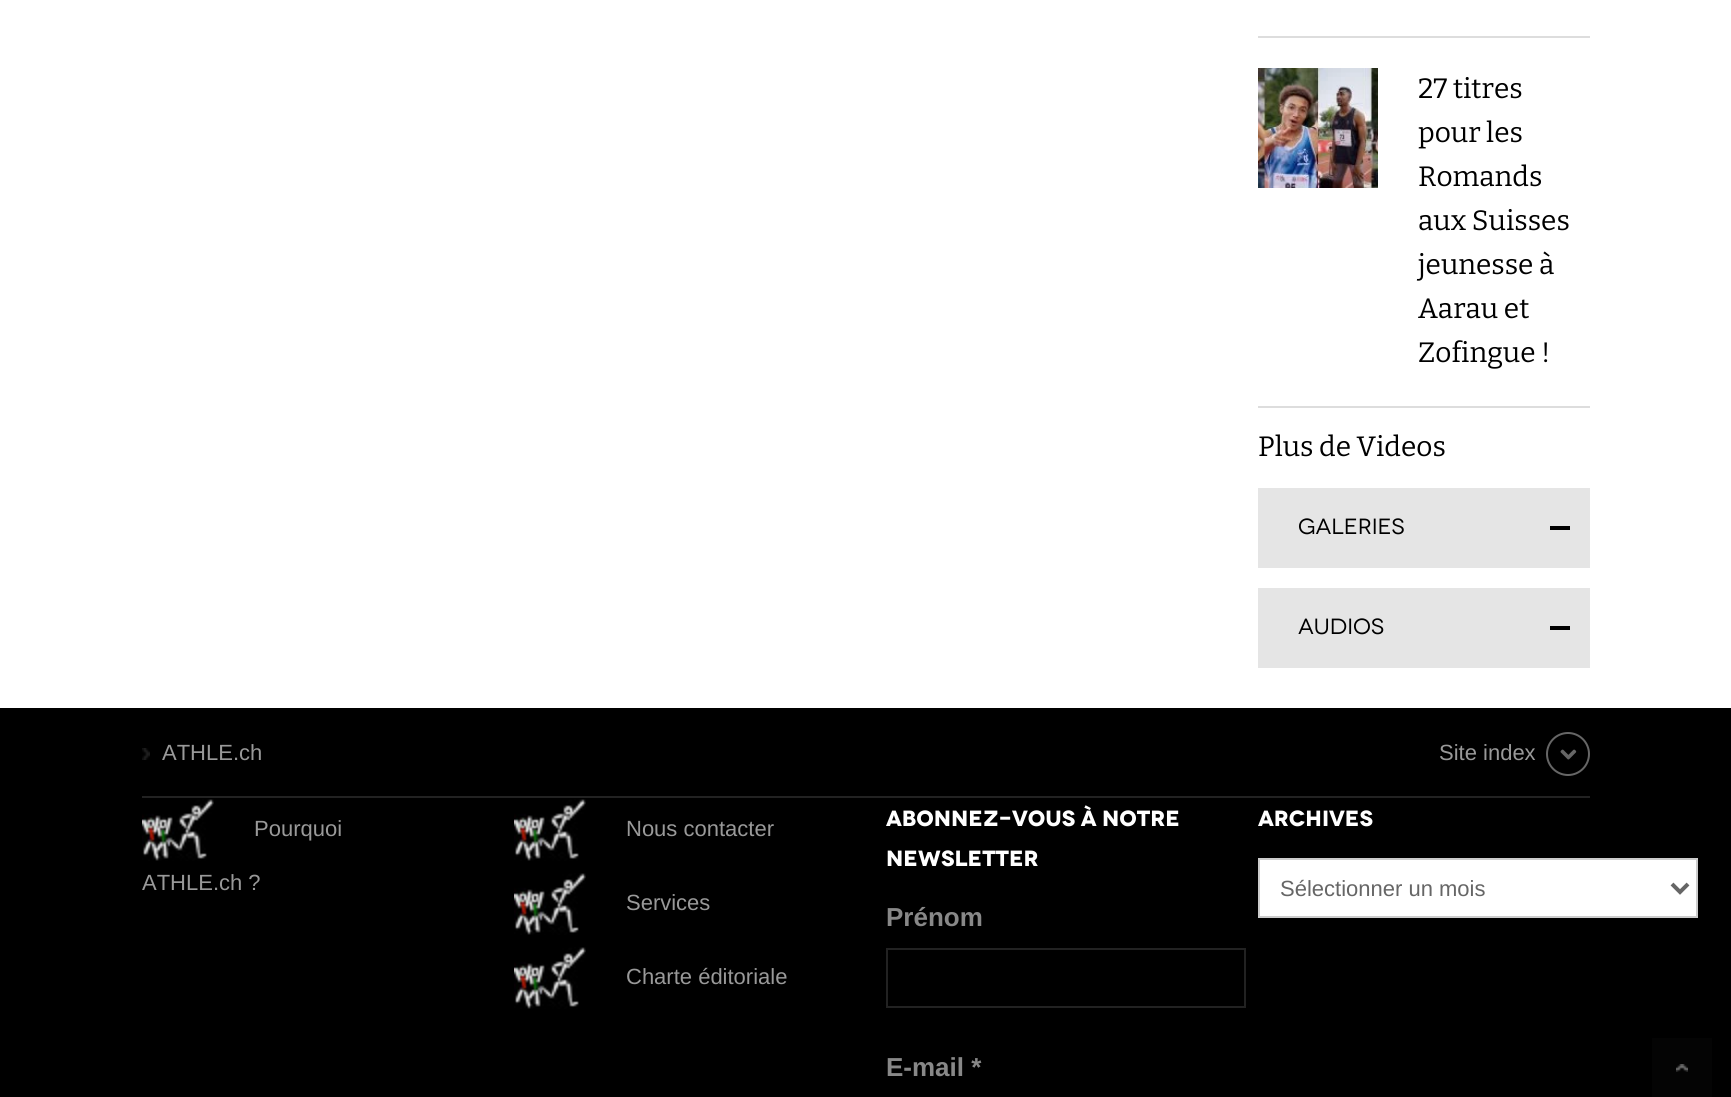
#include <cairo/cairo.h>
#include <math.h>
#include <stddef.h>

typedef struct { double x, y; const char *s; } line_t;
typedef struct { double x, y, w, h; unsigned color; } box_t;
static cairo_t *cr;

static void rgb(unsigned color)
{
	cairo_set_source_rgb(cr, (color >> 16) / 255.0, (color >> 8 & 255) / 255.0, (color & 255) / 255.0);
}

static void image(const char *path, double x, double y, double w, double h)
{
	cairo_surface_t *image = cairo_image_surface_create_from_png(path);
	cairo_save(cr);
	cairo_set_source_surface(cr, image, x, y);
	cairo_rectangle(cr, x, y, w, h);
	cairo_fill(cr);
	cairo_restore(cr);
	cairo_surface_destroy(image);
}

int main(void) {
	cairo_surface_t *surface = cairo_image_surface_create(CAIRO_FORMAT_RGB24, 1731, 1097);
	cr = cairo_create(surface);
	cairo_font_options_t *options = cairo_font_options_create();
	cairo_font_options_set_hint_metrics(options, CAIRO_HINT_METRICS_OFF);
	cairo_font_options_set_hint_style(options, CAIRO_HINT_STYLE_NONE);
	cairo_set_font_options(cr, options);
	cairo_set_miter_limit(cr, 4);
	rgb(0xffffff);
	cairo_paint(cr);
	rgb(0xdddddd);
	cairo_rectangle(cr, 1258, 36, 332, 2);
	cairo_fill(cr);
	image("img/1.png", 1258, 68, 120, 120);
	{
		static const box_t items[] = {
			{1258, 406, 332, 2, 0xdddddd},
			{1258, 488, 332, 80, 0xe5e5e5},
			{1550, 526, 20, 4, 0x000000},
			{1258, 588, 332, 80, 0xe5e5e5},
			{1550, 626, 20, 4, 0x000000},
			{0, 708, 1731, 389, 0x000000},
			{142, 796, 1448, 2, 0x222222},
		};
		for (size_t i = 0; i < sizeof items / sizeof *items; i++) {
			rgb(items[i].color);
			cairo_rectangle(cr, items[i].x, items[i].y, items[i].w, items[i].h);
			cairo_fill(cr);
		}
	}
	image("img/2.png", 142, 748, 8, 12);
	cairo_arc(cr, 1568, 754, 21, 0, 2 * M_PI);
	rgb(0x666666);
	cairo_stroke(cr);
	image("img/3.png", 1560, 749, 17, 11);
	image("img/4.png", 142, 799, 72, 62);
	image("img/4.png", 514, 799, 72, 62);
	image("img/4.png", 514, 873, 72, 62);
	image("img/4.png", 514, 947, 72, 62);
	cairo_rectangle(cr, 887, 949, 358, 58);
	rgb(0x222222);
	cairo_stroke(cr);
	rgb(0xffffff);
	cairo_rectangle(cr, 1259, 859, 438, 58);
	cairo_fill_preserve(cr);
	rgb(0xcccccc);
	cairo_stroke(cr);
	cairo_new_path(cr);
	cairo_move_to(cr, 1672, 884);
	cairo_line_to(cr, 1680, 892);
	cairo_line_to(cr, 1688, 884);
	rgb(0x666666);
	cairo_set_line_width(cr, 4);
	cairo_stroke(cr);
	rgb(0x040404);
	cairo_rectangle(cr, 1652, 1038, 60, 59);
	cairo_fill(cr);
	image("img/5.png", 1676, 1064, 12, 8);
	cairo_select_font_face(cr, "Bitter", CAIRO_FONT_SLANT_NORMAL, CAIRO_FONT_WEIGHT_NORMAL);
	cairo_set_font_size(cr, 28);
	rgb(0x000000);
	{
		static const line_t items[] = {
			{1418, 98, "27 titres"},
			{1418, 142, "pour les"},
			{1418, 186, "Romands"},
			{1418, 230, "aux Suisses"},
			{1418, 274, "jeunesse à"},
			{1418, 318, "Aarau et"},
			{1418, 362, "Zofingue !"},
			{1258, 456, "Plus de Videos"},
		};
		for (size_t i = 0; i < sizeof items / sizeof *items; i++) {
			cairo_move_to(cr, items[i].x, items[i].y);
			cairo_show_text(cr, items[i].s);
		}
	}
	cairo_select_font_face(cr, "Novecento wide", CAIRO_FONT_SLANT_NORMAL, CAIRO_FONT_WEIGHT_NORMAL);
	cairo_set_font_size(cr, 22);
	cairo_move_to(cr, 1298, 534);
	cairo_show_text(cr, "GALERIES");
	cairo_move_to(cr, 1298, 634);
	cairo_show_text(cr, "AUDIOS");
	cairo_select_font_face(cr, "Liberation Sans", CAIRO_FONT_SLANT_NORMAL, CAIRO_FONT_WEIGHT_NORMAL);
	rgb(0x999999);
	{
		static const line_t items[] = {
			{162, 760, "ATHLE.ch"},
			{1439, 760, "Site index"},
			{254, 836, "Pourquoi"},
			{142, 890, "ATHLE.ch ?"},
			{626, 836, "Nous contacter"},
			{626, 910, "Services"},
			{626, 984, "Charte éditoriale"},
		};
		for (size_t i = 0; i < sizeof items / sizeof *items; i++) {
			cairo_move_to(cr, items[i].x, items[i].y);
			cairo_show_text(cr, items[i].s);
		}
	}
	cairo_select_font_face(cr, "Novecento wide", CAIRO_FONT_SLANT_NORMAL, CAIRO_FONT_WEIGHT_BOLD);
	rgb(0xffffff);
	cairo_move_to(cr, 886, 826);
	cairo_show_text(cr, "ABONNEZ-VOUS À NOTRE");
	cairo_move_to(cr, 886, 866);
	cairo_show_text(cr, "NEWSLETTER");
	cairo_select_font_face(cr, "Liberation Sans", CAIRO_FONT_SLANT_NORMAL, CAIRO_FONT_WEIGHT_BOLD);
	cairo_set_font_size(cr, 26);
	rgb(0x888888);
	cairo_move_to(cr, 886, 926);
	cairo_show_text(cr, "Prénom");
	cairo_move_to(cr, 886, 1076);
	cairo_show_text(cr, "E-mail *");
	cairo_select_font_face(cr, "Novecento wide", CAIRO_FONT_SLANT_NORMAL, CAIRO_FONT_WEIGHT_BOLD);
	cairo_set_font_size(cr, 22);
	rgb(0xffffff);
	cairo_move_to(cr, 1258, 826);
	cairo_show_text(cr, "ARCHIVES");
	cairo_select_font_face(cr, "Liberation Sans", CAIRO_FONT_SLANT_NORMAL, CAIRO_FONT_WEIGHT_NORMAL);
	rgb(0x666666);
	cairo_move_to(cr, 1280, 896);
	cairo_show_text(cr, "Sélectionner un mois");
	cairo_surface_write_to_png(surface, "page.png");
	cairo_font_options_destroy(options);
	cairo_destroy(cr);
	cairo_surface_destroy(surface);
	return 0;
}
